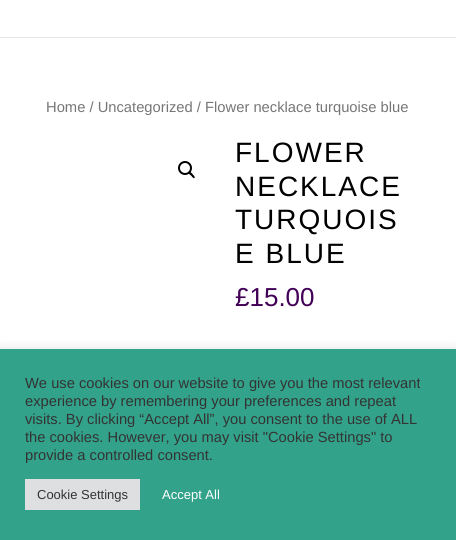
#include <cairo/cairo.h>
#include <math.h>
#include <stddef.h>

typedef struct { double x, y; const char *s; } line_t;
static cairo_t *cr;

static void rgb(unsigned color)
{
	cairo_set_source_rgb(cr, (color >> 16) / 255.0, (color >> 8 & 255) / 255.0, (color & 255) / 255.0);
}

static void tracked(double x, double y, const char *s, double letter, double word)
{
	cairo_move_to(cr, x, y);
	while (*s) {
		char ch[5] = {0};
		int n = 0;
		do ch[n++] = *s++; while ((*s & 0xC0) == 0x80);
		cairo_show_text(cr, ch);
		cairo_rel_move_to(cr, letter + word * (*ch == ' '), 0);
	}
}

static void rrect(double x, double y, double w, double h, double r)
{
	cairo_new_sub_path(cr);
	cairo_arc(cr, x + w - r, y + h - r, r, 0, M_PI / 2);
	cairo_arc(cr, x + r, y + h - r, r, M_PI / 2, M_PI);
	cairo_arc(cr, x + r, y + r, r, M_PI, 1.5 * M_PI);
	cairo_arc(cr, x + w - r, y + r, r, 1.5 * M_PI, 2 * M_PI);
	cairo_close_path(cr);
}

static void soft_shadow(double x, double y, double w, double h, double r, double blur, double alpha)
{
	cairo_push_group_with_content(cr, CAIRO_CONTENT_ALPHA);
	cairo_set_operator(cr, CAIRO_OPERATOR_SOURCE);
	for (int i = 15; i >= -15 && fmin(w, h) + blur * i / 3 > 0; i -= 2) {
		double e = blur * i / 6;
		cairo_set_source_rgba(cr, 0, 0, 0, alpha * erfc((i - 1) / 8.5) / 2);
		rrect(x - e, y - e, w + 2 * e, h + 2 * e, fmax(0, fmin(r + e + blur * .6, fmin(w, h) / 2 + e)));
		cairo_fill(cr);
	}
	cairo_pattern_t *soft = cairo_pop_group(cr);
	cairo_mask(cr, soft);
	cairo_pattern_destroy(soft);
}

int main(void) {
	cairo_surface_t *surface = cairo_image_surface_create(CAIRO_FORMAT_RGB24, 456, 540);
	cr = cairo_create(surface);
	cairo_font_options_t *options = cairo_font_options_create();
	cairo_font_options_set_hint_metrics(options, CAIRO_HINT_METRICS_OFF);
	cairo_font_options_set_hint_style(options, CAIRO_HINT_STYLE_NONE);
	cairo_set_font_options(cr, options);
	cairo_set_miter_limit(cr, 4);
	rgb(0xffffff);
	cairo_paint(cr);
	rgb(0xe6e6e6);
	cairo_rectangle(cr, 0, 37, 456, 1);
	cairo_fill(cr);
	cairo_arc(cr, 185, 168, 6, 0, 2 * M_PI);
	rgb(0x000000);
	cairo_stroke(cr);
	cairo_new_path(cr);
	cairo_move_to(cr, 189, 172);
	cairo_curve_to(cr, 190, 171, 192, 173.5, 192.5, 174);
	cairo_curve_to(cr, 193, 175, 195.5, 176.5, 194.5, 178);
	cairo_curve_to(cr, 193.5, 179, 191.5, 176, 191, 175.5);
	cairo_curve_to(cr, 190.5, 175, 187.5, 173.5, 189, 172);
	cairo_close_path(cr);
	cairo_fill(cr);
	rgb(0xacabab);
	soft_shadow(0, 348, 456, 191, 0, 5, 0.3);
	rgb(0x33a28a);
	cairo_rectangle(cr, 0, 349, 456, 191);
	cairo_fill(cr);
	rgb(0xdedfe0);
	cairo_rectangle(cr, 25, 479, 115, 31);
	cairo_fill(cr);
	cairo_select_font_face(cr, "Liberation Sans", CAIRO_FONT_SLANT_NORMAL, CAIRO_FONT_WEIGHT_NORMAL);
	cairo_set_font_size(cr, 14.75);
	rgb(0x767676);
	cairo_move_to(cr, 46, 112);
	cairo_show_text(cr, "Home / Uncategorized / Flower necklace turquoise blue");
	cairo_set_font_size(cr, 28);
	rgb(0x000000);
	{
		static const line_t items[] = {
			{235, 162, "FLOWER"},
			{235, 196, "NECKLACE"},
			{235, 229, "TURQUOIS"},
			{235, 263, "E BLUE"},
		};
		for (size_t i = 0; i < sizeof items / sizeof *items; i++) {
			tracked(items[i].x, items[i].y, items[i].s, 2, 0);
		}
	}
	cairo_set_font_size(cr, 26);
	rgb(0x420056);
	cairo_move_to(cr, 235, 306);
	cairo_show_text(cr, "£15.00");
	cairo_set_font_size(cr, 14.7);
	rgb(0x333333);
	{
		static const line_t items[] = {
			{25, 388, "We use cookies on our website to give you the most relevant"},
			{25, 406, "experience by remembering your preferences and repeat"},
			{25, 424, "visits. By clicking “Accept All”, you consent to the use of ALL"},
			{25, 442, "the cookies. However, you may visit \"Cookie Settings\" to"},
			{25, 460, "provide a controlled consent."},
		};
		for (size_t i = 0; i < sizeof items / sizeof *items; i++) {
			cairo_move_to(cr, items[i].x, items[i].y);
			cairo_show_text(cr, items[i].s);
		}
	}
	cairo_set_font_size(cr, 13);
	cairo_move_to(cr, 37, 499);
	cairo_show_text(cr, "Cookie Settings");
	rgb(0xffffff);
	cairo_move_to(cr, 162, 499);
	cairo_show_text(cr, "Accept All");
	cairo_surface_write_to_png(surface, "page.png");
	cairo_font_options_destroy(options);
	cairo_destroy(cr);
	cairo_surface_destroy(surface);
	return 0;
}
